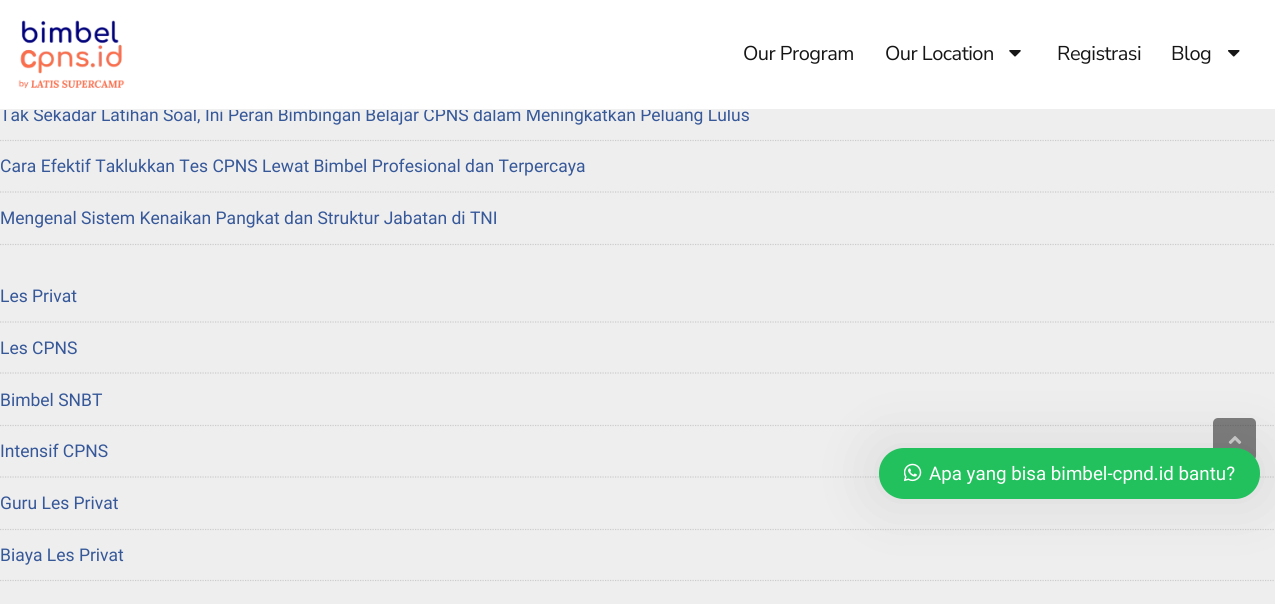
#include <cairo/cairo.h>
#include <math.h>
#include <stddef.h>

typedef struct { double x, y; const char *s; } line_t;
static cairo_t *cr;

static void rgb(unsigned color)
{
	cairo_set_source_rgb(cr, (color >> 16) / 255.0, (color >> 8 & 255) / 255.0, (color & 255) / 255.0);
}

static void tracked(double x, double y, const char *s, double letter, double word)
{
	cairo_move_to(cr, x, y);
	while (*s) {
		char ch[5] = {0};
		int n = 0;
		do ch[n++] = *s++; while ((*s & 0xC0) == 0x80);
		cairo_show_text(cr, ch);
		cairo_rel_move_to(cr, letter + word * (*ch == ' '), 0);
	}
}

static void rrect(double x, double y, double w, double h, double r)
{
	cairo_new_sub_path(cr);
	cairo_arc(cr, x + w - r, y + h - r, r, 0, M_PI / 2);
	cairo_arc(cr, x + r, y + h - r, r, M_PI / 2, M_PI);
	cairo_arc(cr, x + r, y + r, r, M_PI, 1.5 * M_PI);
	cairo_arc(cr, x + w - r, y + r, r, 1.5 * M_PI, 2 * M_PI);
	cairo_close_path(cr);
}

static void soft_shadow(double x, double y, double w, double h, double r, double blur, double alpha)
{
	cairo_push_group_with_content(cr, CAIRO_CONTENT_ALPHA);
	cairo_set_operator(cr, CAIRO_OPERATOR_SOURCE);
	for (int i = 15; i >= -15 && fmin(w, h) + blur * i / 3 > 0; i -= 2) {
		double e = blur * i / 6;
		cairo_set_source_rgba(cr, 0, 0, 0, alpha * erfc((i - 1) / 8.5) / 2);
		rrect(x - e, y - e, w + 2 * e, h + 2 * e, fmax(0, fmin(r + e + blur * .6, fmin(w, h) / 2 + e)));
		cairo_fill(cr);
	}
	cairo_pattern_t *soft = cairo_pop_group(cr);
	cairo_mask(cr, soft);
	cairo_pattern_destroy(soft);
}

static void image(const char *path, double x, double y, double w, double h)
{
	cairo_surface_t *image = cairo_image_surface_create_from_png(path);
	cairo_save(cr);
	cairo_set_source_surface(cr, image, x, y);
	cairo_rectangle(cr, x, y, w, h);
	cairo_fill(cr);
	cairo_restore(cr);
	cairo_surface_destroy(image);
}

int main(void) {
	cairo_surface_t *surface = cairo_image_surface_create(CAIRO_FORMAT_RGB24, 1275, 604);
	cr = cairo_create(surface);
	cairo_font_options_t *options = cairo_font_options_create();
	cairo_font_options_set_hint_metrics(options, CAIRO_HINT_METRICS_OFF);
	cairo_font_options_set_hint_style(options, CAIRO_HINT_STYLE_NONE);
	cairo_set_font_options(cr, options);
	cairo_set_miter_limit(cr, 4);
	rgb(0xeeeeee);
	cairo_paint(cr);
	cairo_new_path(cr);
	cairo_move_to(cr, 0, 140.5);
	cairo_line_to(cr, 1275, 140.5);
	rgb(0xcccccc);
	cairo_set_line_width(cr, 1.2);
	cairo_set_dash(cr, (double[]){1.25, 1.25}, 2, 0);
	cairo_stroke(cr);
	cairo_new_path(cr);
	cairo_move_to(cr, 0, 192);
	cairo_line_to(cr, 1275, 192);
	cairo_stroke(cr);
	cairo_new_path(cr);
	cairo_move_to(cr, 0, 244.5);
	cairo_line_to(cr, 1275, 244.5);
	cairo_stroke(cr);
	cairo_new_path(cr);
	cairo_move_to(cr, 0, 322);
	cairo_line_to(cr, 1275, 322);
	cairo_stroke(cr);
	cairo_new_path(cr);
	cairo_move_to(cr, 0, 373);
	cairo_line_to(cr, 1275, 373);
	cairo_stroke(cr);
	cairo_new_path(cr);
	cairo_move_to(cr, 0, 425.5);
	cairo_line_to(cr, 1275, 425.5);
	cairo_stroke(cr);
	cairo_new_path(cr);
	cairo_move_to(cr, 0, 477);
	cairo_line_to(cr, 1275, 477);
	cairo_stroke(cr);
	cairo_new_path(cr);
	cairo_move_to(cr, 0, 529.5);
	cairo_line_to(cr, 1275, 529.5);
	cairo_stroke(cr);
	cairo_new_path(cr);
	cairo_move_to(cr, 0, 580.5);
	cairo_line_to(cr, 1275, 580.5);
	cairo_stroke(cr);
	cairo_set_source_rgba(cr, 0.2, 0.2, 0.2, 0.6);
	rrect(1213, 418, 43, 43, 5);
	cairo_fill(cr);
	image("img/4.png", 1228, 436, 14, 8);
	rgb(0x000000);
	soft_shadow(879, 448, 381, 51, 25, 31, 0.1);
	rgb(0x22c15e);
	rrect(879, 448, 381, 51, 25);
	cairo_fill(cr);
	image("img/5.png", 904, 463, 18, 19);
	cairo_select_font_face(cr, "Roboto", CAIRO_FONT_SLANT_NORMAL, CAIRO_FONT_WEIGHT_NORMAL);
	cairo_set_font_size(cr, 17.5);
	rgb(0x365899);
	cairo_move_to(cr, 0, 121);
	cairo_show_text(cr, "Tak Sekadar Latihan Soal, Ini Peran Bimbingan Belajar CPNS dalam Meningkatkan Peluang Lulus");
	rgb(0xffffff);
	cairo_rectangle(cr, 0, 0, 1275, 109);
	cairo_fill(cr);
	image("img/3.png", 1228, 50, 12, 7);
	cairo_select_font_face(cr, "Nunito Sans", CAIRO_FONT_SLANT_NORMAL, CAIRO_FONT_WEIGHT_NORMAL);
	cairo_set_font_size(cr, 20);
	rgb(0x161616);
	tracked(1171, 60, "Blog", -0.5, 0);
	tracked(1057, 60, "Registrasi", -0.5, 0);
	image("img/2.png", 1009, 50, 12, 7);
	tracked(885, 60, "Our Location", -0.5, 0);
	tracked(743, 60, "Our Program", -0.5, 0);
	image("img/1.png", 18, 20, 107, 69);
	rgb(0xf0f0f0);
	cairo_rectangle(cr, 0, 109, 730, 1);
	cairo_fill(cr);
	cairo_select_font_face(cr, "Roboto", CAIRO_FONT_SLANT_NORMAL, CAIRO_FONT_WEIGHT_NORMAL);
	cairo_set_font_size(cr, 17.5);
	rgb(0x365899);
	{
		static const line_t items[] = {
			{0, 172, "Cara Efektif Taklukkan Tes CPNS Lewat Bimbel Profesional dan Terpercaya"},
			{0, 224, "Mengenal Sistem Kenaikan Pangkat dan Struktur Jabatan di TNI"},
			{0, 302, "Les Privat"},
			{0, 354, "Les CPNS"},
			{0, 406, "Bimbel SNBT"},
			{0, 457, "Intensif CPNS"},
			{0, 509, "Guru Les Privat"},
			{0, 561, "Biaya Les Privat"},
		};
		for (size_t i = 0; i < sizeof items / sizeof *items; i++) {
			cairo_move_to(cr, items[i].x, items[i].y);
			cairo_show_text(cr, items[i].s);
		}
	}
	cairo_set_font_size(cr, 18.75);
	rgb(0xffffff);
	cairo_move_to(cr, 929, 480);
	cairo_show_text(cr, "Apa yang bisa bimbel-cpnd.id bantu?");
	cairo_surface_write_to_png(surface, "page.png");
	cairo_font_options_destroy(options);
	cairo_destroy(cr);
	cairo_surface_destroy(surface);
	return 0;
}
